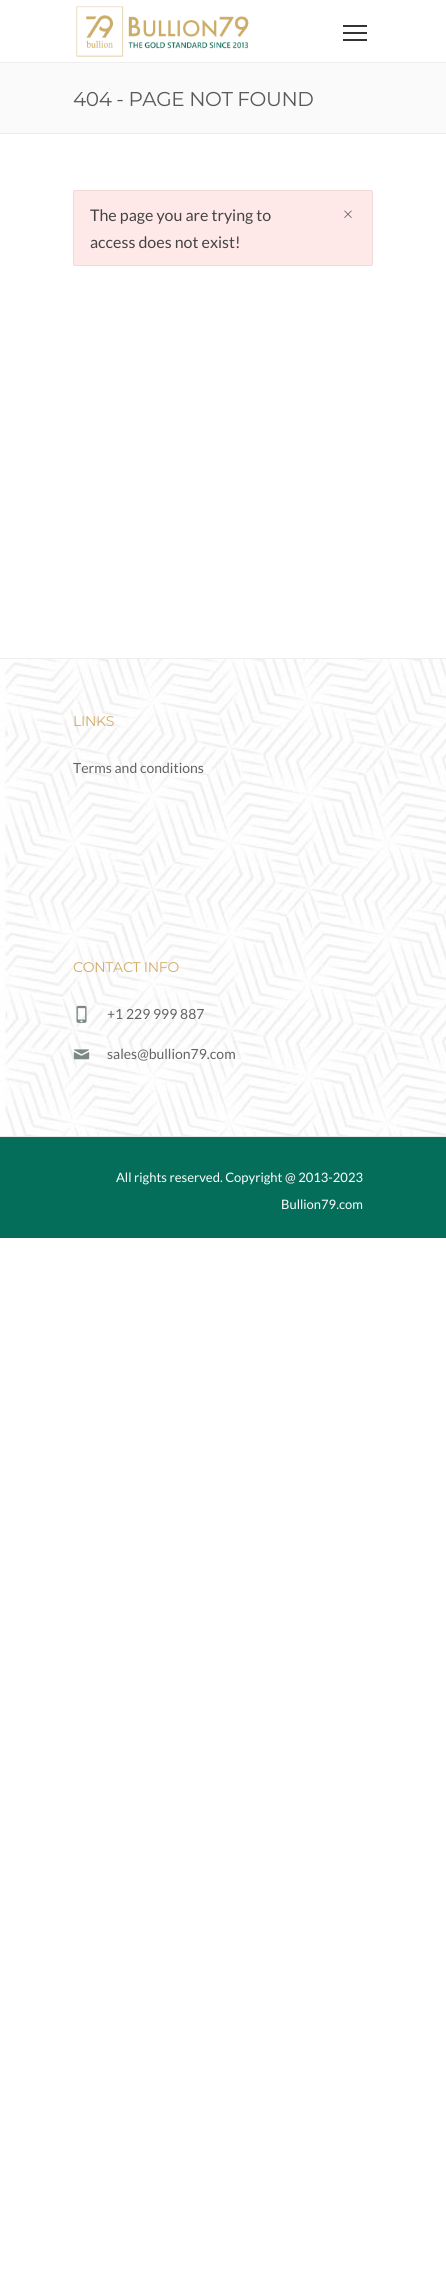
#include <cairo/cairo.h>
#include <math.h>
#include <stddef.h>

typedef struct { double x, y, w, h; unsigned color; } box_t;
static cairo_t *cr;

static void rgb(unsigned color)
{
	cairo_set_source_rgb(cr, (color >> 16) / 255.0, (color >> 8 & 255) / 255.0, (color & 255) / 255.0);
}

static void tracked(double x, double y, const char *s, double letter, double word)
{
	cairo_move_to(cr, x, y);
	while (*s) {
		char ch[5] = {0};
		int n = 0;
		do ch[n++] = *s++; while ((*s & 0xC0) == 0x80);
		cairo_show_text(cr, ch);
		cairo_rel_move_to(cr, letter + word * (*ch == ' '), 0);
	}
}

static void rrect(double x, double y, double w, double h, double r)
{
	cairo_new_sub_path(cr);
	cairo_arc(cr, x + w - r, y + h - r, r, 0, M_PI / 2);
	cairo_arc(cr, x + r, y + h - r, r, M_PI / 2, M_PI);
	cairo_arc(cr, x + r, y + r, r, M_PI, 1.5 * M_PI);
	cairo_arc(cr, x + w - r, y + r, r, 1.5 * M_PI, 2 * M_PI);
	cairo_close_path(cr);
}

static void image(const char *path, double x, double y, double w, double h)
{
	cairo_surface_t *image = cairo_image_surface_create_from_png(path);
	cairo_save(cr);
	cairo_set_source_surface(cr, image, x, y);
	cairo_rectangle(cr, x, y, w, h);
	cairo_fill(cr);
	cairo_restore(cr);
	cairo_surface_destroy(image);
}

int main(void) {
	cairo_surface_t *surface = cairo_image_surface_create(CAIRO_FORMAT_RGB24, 446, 2289);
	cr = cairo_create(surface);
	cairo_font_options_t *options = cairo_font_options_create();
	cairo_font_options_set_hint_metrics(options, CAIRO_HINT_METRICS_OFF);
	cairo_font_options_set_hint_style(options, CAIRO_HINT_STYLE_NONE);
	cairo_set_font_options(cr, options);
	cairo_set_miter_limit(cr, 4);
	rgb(0xffffff);
	cairo_paint(cr);
	cairo_rectangle(cr, -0.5, -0.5, 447, 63);
	rgb(0xeeeeee);
	cairo_set_line_width(cr, 1);
	cairo_stroke(cr);
	image("img/1.png", 76, 6, 173, 51);
	{
		static const box_t items[] = {
			{343, 25, 24, 2, 0x333333},
			{343, 32, 24, 2, 0x333333},
			{343, 39, 24, 2, 0x333333},
			{0, 63, 446, 70, 0xfafafa},
			{0, 133, 446, 1, 0xeeeeee},
		};
		for (size_t i = 0; i < sizeof items / sizeof *items; i++) {
			rgb(items[i].color);
			cairo_rectangle(cr, items[i].x, items[i].y, items[i].w, items[i].h);
			cairo_fill(cr);
		}
	}
	rgb(0xffe8e8);
	rrect(73.5, 190.5, 299, 75, 1.5);
	cairo_fill_preserve(cr);
	rgb(0xefd9d9);
	cairo_stroke(cr);
	image("img/2.png", 344, 210, 8, 8);
	image("img/3.png", 0, 659, 446, 477);
	rgb(0xeeeeee);
	cairo_rectangle(cr, 0, 658, 446, 1);
	cairo_fill(cr);
	image("img/4.png", 76, 1005, 11, 18);
	image("img/5.png", 73, 1049, 17, 11);
	rgb(0x046e5a);
	cairo_rectangle(cr, 0, 1137, 446, 101);
	cairo_fill(cr);
	rgb(0xe9e9e9);
	cairo_rectangle(cr, 0, 1136, 446, 1);
	cairo_fill(cr);
	cairo_select_font_face(cr, "Montserrat", CAIRO_FONT_SLANT_NORMAL, CAIRO_FONT_WEIGHT_NORMAL);
	cairo_set_font_size(cr, 20);
	rgb(0x58595b);
	tracked(73, 106, "404 - PAGE NOT FOUND", -0.4, 0);
	cairo_select_font_face(cr, "Lato", CAIRO_FONT_SLANT_NORMAL, CAIRO_FONT_WEIGHT_NORMAL);
	cairo_set_font_size(cr, 16);
	rgb(0x444444);
	cairo_move_to(cr, 90, 221);
	cairo_show_text(cr, "The page you are trying to");
	cairo_move_to(cr, 90, 248);
	cairo_show_text(cr, "access does not exist!");
	cairo_select_font_face(cr, "Montserrat", CAIRO_FONT_SLANT_NORMAL, CAIRO_FONT_WEIGHT_NORMAL);
	cairo_set_font_size(cr, 14);
	rgb(0xd2ab67);
	tracked(73, 726, "LINKS", -0.25, 0);
	cairo_select_font_face(cr, "Lato", CAIRO_FONT_SLANT_NORMAL, CAIRO_FONT_WEIGHT_NORMAL);
	rgb(0x636363);
	cairo_move_to(cr, 73, 773);
	cairo_show_text(cr, "Terms and conditions");
	cairo_select_font_face(cr, "Montserrat", CAIRO_FONT_SLANT_NORMAL, CAIRO_FONT_WEIGHT_NORMAL);
	rgb(0xd2ab67);
	tracked(73, 972, "CONTACT INFO", -0.25, 0);
	cairo_select_font_face(cr, "Lato", CAIRO_FONT_SLANT_NORMAL, CAIRO_FONT_WEIGHT_NORMAL);
	rgb(0x636363);
	cairo_move_to(cr, 107, 1019);
	cairo_show_text(cr, "+1 229 999 887");
	cairo_move_to(cr, 107, 1059);
	cairo_show_text(cr, "sales@bullion79.com");
	cairo_set_font_size(cr, 13);
	rgb(0xffffff);
	cairo_move_to(cr, 116, 1182);
	cairo_show_text(cr, "All rights reserved. Copyright @ 2013-2023");
	cairo_move_to(cr, 281, 1209);
	cairo_show_text(cr, "Bullion79.com");
	cairo_surface_write_to_png(surface, "page.png");
	cairo_font_options_destroy(options);
	cairo_destroy(cr);
	cairo_surface_destroy(surface);
	return 0;
}
